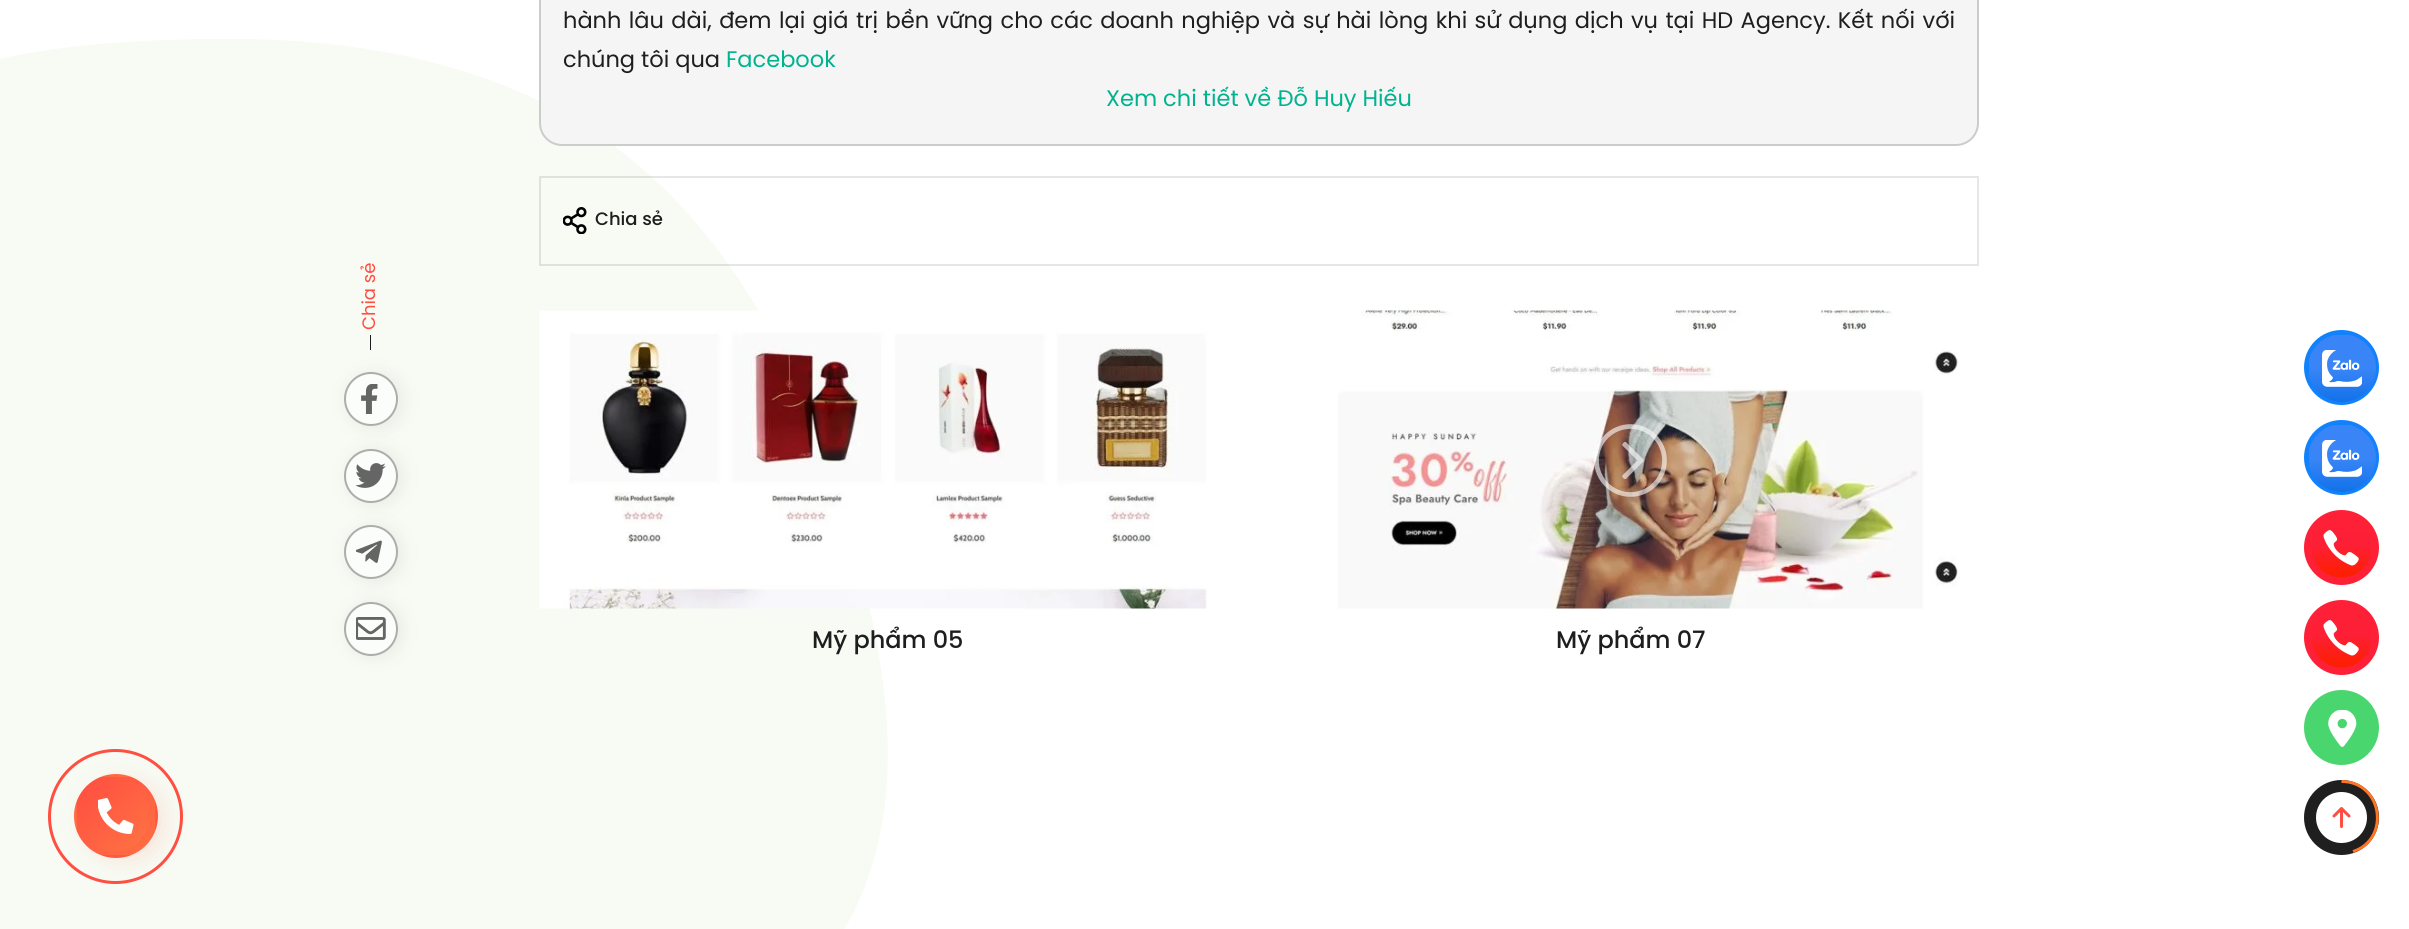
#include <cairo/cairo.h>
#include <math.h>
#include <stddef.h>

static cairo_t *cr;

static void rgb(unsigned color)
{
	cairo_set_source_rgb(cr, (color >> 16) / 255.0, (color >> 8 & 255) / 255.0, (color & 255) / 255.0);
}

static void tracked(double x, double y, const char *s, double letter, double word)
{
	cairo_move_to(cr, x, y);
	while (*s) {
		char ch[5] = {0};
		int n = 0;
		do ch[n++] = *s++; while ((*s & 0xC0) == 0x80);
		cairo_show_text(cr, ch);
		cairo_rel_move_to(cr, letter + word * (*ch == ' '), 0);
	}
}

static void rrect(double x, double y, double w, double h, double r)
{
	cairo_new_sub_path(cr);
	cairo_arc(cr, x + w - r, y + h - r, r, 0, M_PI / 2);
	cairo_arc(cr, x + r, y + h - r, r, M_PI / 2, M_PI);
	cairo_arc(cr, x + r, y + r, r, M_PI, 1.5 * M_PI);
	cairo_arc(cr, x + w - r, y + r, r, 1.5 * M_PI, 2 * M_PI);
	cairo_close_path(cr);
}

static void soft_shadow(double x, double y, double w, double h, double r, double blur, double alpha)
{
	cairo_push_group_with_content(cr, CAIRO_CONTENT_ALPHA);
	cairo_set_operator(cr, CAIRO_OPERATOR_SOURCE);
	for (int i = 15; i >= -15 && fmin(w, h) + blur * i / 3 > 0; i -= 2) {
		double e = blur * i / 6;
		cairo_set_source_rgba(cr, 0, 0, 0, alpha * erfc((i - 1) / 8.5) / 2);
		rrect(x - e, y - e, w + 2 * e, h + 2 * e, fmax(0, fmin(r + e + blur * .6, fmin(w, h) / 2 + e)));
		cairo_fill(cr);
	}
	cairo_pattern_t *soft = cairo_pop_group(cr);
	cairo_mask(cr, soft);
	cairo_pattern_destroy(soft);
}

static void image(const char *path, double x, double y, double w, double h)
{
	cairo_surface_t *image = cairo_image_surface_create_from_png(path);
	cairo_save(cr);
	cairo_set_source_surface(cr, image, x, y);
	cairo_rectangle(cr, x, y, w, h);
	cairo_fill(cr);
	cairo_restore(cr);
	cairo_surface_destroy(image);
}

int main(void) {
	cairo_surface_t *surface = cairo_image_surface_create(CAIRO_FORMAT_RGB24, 2409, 929);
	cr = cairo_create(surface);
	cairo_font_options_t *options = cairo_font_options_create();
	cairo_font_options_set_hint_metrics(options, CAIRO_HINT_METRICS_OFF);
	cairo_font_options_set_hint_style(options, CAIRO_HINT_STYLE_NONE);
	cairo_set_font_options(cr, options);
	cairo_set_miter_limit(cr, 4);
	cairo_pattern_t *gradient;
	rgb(0xffffff);
	cairo_paint(cr);
	cairo_save(cr);
	cairo_rectangle(cr, 0, 39, 888, 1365);
	cairo_clip(cr);
	rgb(0xf7fbf3);
	cairo_set_fill_rule(cr, CAIRO_FILL_RULE_EVEN_ODD);
	cairo_new_path(cr);
	cairo_move_to(cr, 201, 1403);
	cairo_curve_to(cr, 341, 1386, 397, 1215, 510, 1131);
	cairo_curve_to(cr, 620, 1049, 788, 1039, 851, 917);
	cairo_curve_to(cr, 917, 791, 882, 635, 840, 499);
	cairo_curve_to(cr, 797, 361, 727, 228, 610, 143);
	cairo_curve_to(cr, 493, 59, 345, 36, 201, 39);
	cairo_curve_to(cr, 59, 42, -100, 57, -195, 161);
	cairo_curve_to(cr, -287, 262, -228, 424, -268, 554);
	cairo_curve_to(cr, -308, 682, -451, 779, -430, 911);
	cairo_curve_to(cr, -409, 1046, -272, 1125, -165, 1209);
	cairo_curve_to(cr, -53, 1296, 61, 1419, 201, 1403);
	cairo_close_path(cr);
	cairo_fill(cr);
	cairo_restore(cr);
	rgb(0x1f1e1e);
	cairo_rectangle(cr, 370, 335, 1, 15);
	cairo_fill(cr);
	rgb(0xacaeaa);
	soft_shadow(348, 374, 54, 54, 27, 9, 0.2);
	rgb(0xfbfdfa);
	cairo_arc(cr, 371, 399, 26, 0, 2 * M_PI);
	cairo_fill_preserve(cr);
	rgb(0xacaeaa);
	cairo_stroke(cr);
	image("img/1.png", 361, 384, 17, 30);
	rgb(0x7a7a7a);
	soft_shadow(348, 450, 54, 54, 27, 9, 0.12);
	rgb(0xfbfdfa);
	cairo_arc(cr, 371, 476, 26, 0, 2 * M_PI);
	cairo_fill_preserve(cr);
	rgb(0xacaeaa);
	cairo_stroke(cr);
	image("img/2.png", 356, 463, 30, 25);
	rgb(0x7a7a7a);
	soft_shadow(348, 527, 54, 54, 27, 9, 0.12);
	rgb(0xfbfdfa);
	cairo_arc(cr, 371, 552, 26, 0, 2 * M_PI);
	cairo_fill_preserve(cr);
	rgb(0xacaeaa);
	cairo_stroke(cr);
	image("img/3.png", 356, 540, 26, 23);
	rgb(0x7a7a7a);
	soft_shadow(348, 603, 54, 54, 27, 9, 0.12);
	rgb(0xfbfdfa);
	cairo_arc(cr, 371, 629, 26, 0, 2 * M_PI);
	cairo_fill_preserve(cr);
	rgb(0xacaeaa);
	cairo_stroke(cr);
	image("img/4.png", 356, 617, 30, 23);
	rgb(0xf5f5f5);
	rrect(540, -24, 1438, 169, 22);
	cairo_fill_preserve(cr);
	rgb(0xcccccc);
	cairo_stroke(cr);
	cairo_rectangle(cr, 540, 177, 1438, 88);
	cairo_set_source_rgba(cr, 0, 0, 0, 0.1);
	cairo_stroke(cr);
	image("img/5.png", 563, 207, 24, 27);
	image("img/6.png", 539, 310, 668, 299);
	cairo_set_source_rgba(cr, 1, 1, 1, 0.6);
	cairo_rectangle(cr, 857, 442, 4, 4);
	cairo_fill(cr);
	image("img/7.png", 1338, 310, 620, 299);
	image("img/8.png", 1594, 424, 73, 73);
	rgb(0x1182fc);
	cairo_arc(cr, 2341.5, 367.5, 37.5, 0, 2 * M_PI);
	cairo_fill(cr);
	image("img/9.png", 2309, 335, 67, 67);
	cairo_arc(cr, 2341.5, 457.5, 37.5, 0, 2 * M_PI);
	cairo_fill(cr);
	image("img/9.png", 2309, 425, 67, 67);
	rgb(0xfd2036);
	cairo_arc(cr, 2341.5, 547.5, 37.5, 0, 2 * M_PI);
	cairo_fill(cr);
	image("img/10.png", 2312, 530, 59, 48);
	cairo_arc(cr, 2341.5, 637.5, 37.5, 0, 2 * M_PI);
	cairo_fill(cr);
	image("img/10.png", 2312, 620, 59, 48);
	rgb(0x4ad66e);
	cairo_arc(cr, 2341.5, 727.5, 37.5, 0, 2 * M_PI);
	cairo_fill(cr);
	image("img/11.png", 2328, 710, 29, 37);
	cairo_arc(cr, 115.5, 816.5, 66, 0, 2 * M_PI);
	rgb(0xff4e42);
	cairo_set_line_width(cr, 3);
	cairo_stroke(cr);
	cairo_save(cr);
	rrect(74, 774, 84, 84, 42);
	cairo_clip(cr);
	gradient = cairo_pattern_create_linear(77, 699, 155, 777);
	cairo_pattern_add_color_stop_rgba(gradient, 0, 1, 0.306, 0.259, 1);
	cairo_pattern_add_color_stop_rgba(gradient, 1, 1, 0.455, 0.259, 1);
	cairo_set_source(cr, gradient);
	cairo_pattern_destroy(gradient);
	cairo_rectangle(cr, 100, 774, 32, 3);
	cairo_fill(cr);
	gradient = cairo_pattern_create_linear(-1.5, 777, 77, 855);
	cairo_pattern_add_color_stop_rgba(gradient, 0, 1, 0.306, 0.259, 1);
	cairo_pattern_add_color_stop_rgba(gradient, 1, 1, 0.455, 0.259, 1);
	cairo_set_source(cr, gradient);
	cairo_pattern_destroy(gradient);
	cairo_rectangle(cr, 74, 800, 3, 32);
	cairo_fill(cr);
	gradient = cairo_pattern_create_linear(77, 777, 155, 855);
	cairo_pattern_add_color_stop_rgba(gradient, 0, 1, 0.306, 0.259, 1);
	cairo_pattern_add_color_stop_rgba(gradient, 1, 1, 0.455, 0.259, 1);
	cairo_set_source(cr, gradient);
	cairo_pattern_destroy(gradient);
	cairo_rectangle(cr, 77, 777, 78, 78);
	cairo_fill(cr);
	gradient = cairo_pattern_create_linear(155, 777, 233, 855);
	cairo_pattern_add_color_stop_rgba(gradient, 0, 1, 0.306, 0.259, 1);
	cairo_pattern_add_color_stop_rgba(gradient, 1, 1, 0.455, 0.259, 1);
	cairo_set_source(cr, gradient);
	cairo_pattern_destroy(gradient);
	cairo_rectangle(cr, 155, 800, 3, 32);
	cairo_fill(cr);
	gradient = cairo_pattern_create_linear(77, 855, 155, 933);
	cairo_pattern_add_color_stop_rgba(gradient, 0, 1, 0.306, 0.259, 1);
	cairo_pattern_add_color_stop_rgba(gradient, 1, 1, 0.455, 0.259, 1);
	cairo_set_source(cr, gradient);
	cairo_pattern_destroy(gradient);
	cairo_rectangle(cr, 100, 855, 32, 3);
	cairo_fill(cr);
	cairo_restore(cr);
	rgb(0xff4e42);
	soft_shadow(90, 786, 69, 69, 34.5, 13.5, 0.2);
	gradient = cairo_pattern_create_linear(81, 782, 150, 851);
	cairo_pattern_add_color_stop_rgba(gradient, 0, 1, 0.306, 0.259, 1);
	cairo_pattern_add_color_stop_rgba(gradient, 1, 1, 0.455, 0.259, 1);
	cairo_set_source(cr, gradient);
	cairo_pattern_destroy(gradient);
	cairo_arc(cr, 115.5, 816.5, 34.5, 0, 2 * M_PI);
	cairo_fill(cr);
	image("img/12.png", 98, 798, 36, 36);
	rgb(0x1f1f1f);
	cairo_arc(cr, 2341.5, 817.5, 37.5, 0, 2 * M_PI);
	cairo_fill(cr);
	cairo_new_path(cr);
	cairo_move_to(cr, 2341.5, 781.5);
	cairo_curve_to(cr, 2382.5, 781.5, 2391, 839, 2353, 851.5);
	rgb(0xff7425);
	cairo_set_line_width(cr, 2.9);
	cairo_stroke(cr);
	rgb(0xffffff);
	cairo_arc(cr, 2341.5, 817.5, 25.5, 0, 2 * M_PI);
	cairo_fill(cr);
	image("img/13.png", 2332, 807, 19, 21);
	cairo_select_font_face(cr, "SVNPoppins", CAIRO_FONT_SLANT_NORMAL, CAIRO_FONT_WEIGHT_NORMAL);
	cairo_set_font_size(cr, 18);
	rgb(0xff4e42);
	cairo_save(cr);
	cairo_translate(cr, 375, 330);
	cairo_rotate(cr, -90 * M_PI / 180);
	cairo_move_to(cr, 0, 0);
	cairo_show_text(cr, "Chia sẻ");
	cairo_restore(cr);
	cairo_set_font_size(cr, 22.5);
	rgb(0x1f1e1e);
	tracked(563, 28, "hành lâu dài, đem lại giá trị bền vững cho các doanh nghiệp và sự hài lòng khi sử dụng dịch vụ tại HD Agency. Kết nối với", 0, 1.4);
	cairo_move_to(cr, 563, 67);
	cairo_show_text(cr, "chúng tôi qua");
	rgb(0x00b38f);
	cairo_move_to(cr, 726, 67);
	cairo_show_text(cr, "Facebook");
	cairo_move_to(cr, 1106, 106);
	cairo_show_text(cr, "Xem chi tiết về Đỗ Huy Hiếu");
	cairo_select_font_face(cr, "SVNPoppins Medium", CAIRO_FONT_SLANT_NORMAL, CAIRO_FONT_WEIGHT_NORMAL);
	cairo_set_font_size(cr, 18);
	rgb(0x1f1e1e);
	cairo_move_to(cr, 595, 225);
	cairo_show_text(cr, "Chia sẻ");
	cairo_set_font_size(cr, 24);
	cairo_move_to(cr, 812, 648);
	cairo_show_text(cr, "Mỹ phẩm 05");
	cairo_move_to(cr, 1556, 648);
	cairo_show_text(cr, "Mỹ phẩm 07");
	cairo_surface_write_to_png(surface, "page.png");
	cairo_font_options_destroy(options);
	cairo_destroy(cr);
	cairo_surface_destroy(surface);
	return 0;
}
